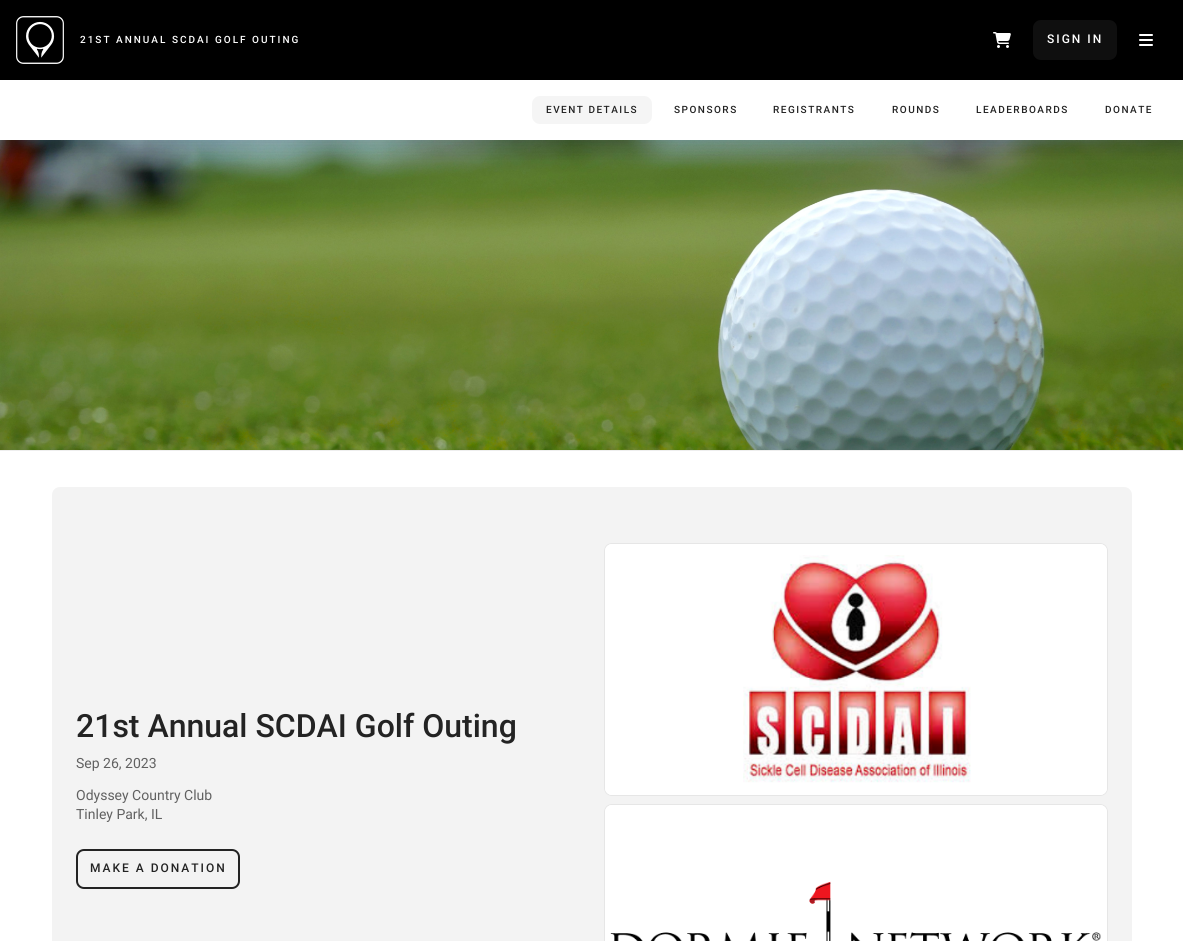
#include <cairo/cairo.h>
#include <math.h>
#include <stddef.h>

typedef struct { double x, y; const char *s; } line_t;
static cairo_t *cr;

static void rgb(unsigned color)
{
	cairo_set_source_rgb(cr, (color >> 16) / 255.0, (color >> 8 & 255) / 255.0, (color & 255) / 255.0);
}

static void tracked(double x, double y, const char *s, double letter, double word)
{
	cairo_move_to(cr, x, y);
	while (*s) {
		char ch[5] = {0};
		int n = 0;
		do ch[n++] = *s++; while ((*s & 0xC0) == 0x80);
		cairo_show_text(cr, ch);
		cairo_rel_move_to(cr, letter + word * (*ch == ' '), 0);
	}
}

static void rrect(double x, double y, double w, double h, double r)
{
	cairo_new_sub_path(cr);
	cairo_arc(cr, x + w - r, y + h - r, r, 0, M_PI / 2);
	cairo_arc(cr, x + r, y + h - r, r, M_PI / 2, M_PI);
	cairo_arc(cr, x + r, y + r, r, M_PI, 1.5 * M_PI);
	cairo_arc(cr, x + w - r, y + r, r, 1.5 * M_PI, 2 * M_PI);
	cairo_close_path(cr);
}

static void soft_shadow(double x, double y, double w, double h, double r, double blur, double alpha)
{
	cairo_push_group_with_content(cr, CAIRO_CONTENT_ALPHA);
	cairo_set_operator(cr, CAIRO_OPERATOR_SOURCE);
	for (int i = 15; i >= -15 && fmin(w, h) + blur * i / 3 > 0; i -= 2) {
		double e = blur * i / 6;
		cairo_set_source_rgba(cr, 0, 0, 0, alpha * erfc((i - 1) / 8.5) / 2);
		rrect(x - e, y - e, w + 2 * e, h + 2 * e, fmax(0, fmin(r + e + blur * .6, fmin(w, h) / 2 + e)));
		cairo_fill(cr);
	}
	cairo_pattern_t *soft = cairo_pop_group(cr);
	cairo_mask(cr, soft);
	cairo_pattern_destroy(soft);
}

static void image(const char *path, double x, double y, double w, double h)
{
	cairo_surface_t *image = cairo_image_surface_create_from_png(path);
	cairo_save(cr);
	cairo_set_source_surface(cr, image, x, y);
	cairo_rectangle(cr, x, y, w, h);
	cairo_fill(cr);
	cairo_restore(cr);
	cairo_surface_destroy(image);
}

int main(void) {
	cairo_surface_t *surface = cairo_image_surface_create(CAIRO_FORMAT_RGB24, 1183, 941);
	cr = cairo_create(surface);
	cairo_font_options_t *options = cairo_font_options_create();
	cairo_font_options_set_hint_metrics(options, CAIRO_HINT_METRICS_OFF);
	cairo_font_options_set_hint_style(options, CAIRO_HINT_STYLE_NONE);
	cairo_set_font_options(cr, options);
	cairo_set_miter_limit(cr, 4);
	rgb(0xffffff);
	cairo_paint(cr);
	rgb(0x000000);
	cairo_rectangle(cr, 0, 0, 1183, 80);
	cairo_fill(cr);
	image("img/1.png", 16, 16, 48, 48);
	image("img/2.png", 993, 32, 18, 16);
	rgb(0x0f0f0f);
	rrect(1033, 20, 84, 40, 8);
	cairo_fill(cr);
	image("img/3.png", 1139, 34, 14, 12);
	image("img/4.png", 0, 140, 1183, 310);
	cairo_save(cr);
	cairo_rectangle(cr, 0, 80, 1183, 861);
	cairo_clip(cr);
	cairo_rectangle(cr, 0, 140, 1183, 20);
	cairo_clip(cr);
	rgb(0x000000);
	soft_shadow(0, 88, 1183, 60, 0, 10, 0.17);
	cairo_restore(cr);
	rgb(0xf5f5f5);
	rrect(532, 96, 120, 28, 8);
	cairo_fill(cr);
	rgb(0xeeeeee);
	cairo_rectangle(cr, 0, 450, 1183, 1);
	cairo_fill(cr);
	rgb(0xf3f3f3);
	cairo_new_path(cr);
	cairo_move_to(cr, 60, 487);
	cairo_line_to(cr, 1124, 487);
	cairo_curve_to(cr, 1128.5, 487, 1132, 490.5, 1132, 495);
	cairo_line_to(cr, 1132, 941);
	cairo_line_to(cr, 52, 941);
	cairo_line_to(cr, 52, 495);
	cairo_curve_to(cr, 52, 490.5, 55.5, 487, 60, 487);
	cairo_close_path(cr);
	cairo_fill(cr);
	rrect(77, 850, 162, 38, 7);
	rgb(0x232323);
	cairo_stroke(cr);
	rgb(0xffffff);
	rrect(604, 543, 504, 253, 8);
	cairo_fill(cr);
	rrect(604.5, 543.5, 503, 252, 7.5);
	cairo_set_source_rgba(cr, 0, 0, 0, 0.1);
	cairo_set_line_width(cr, 1);
	cairo_stroke(cr);
	image("img/5.png", 605, 544, 502, 251);
	rgb(0xffffff);
	cairo_new_path(cr);
	cairo_move_to(cr, 612, 804);
	cairo_line_to(cr, 1100, 804);
	cairo_curve_to(cr, 1104.5, 804, 1108, 807.5, 1108, 812);
	cairo_line_to(cr, 1108, 941);
	cairo_line_to(cr, 604, 941);
	cairo_line_to(cr, 604, 812);
	cairo_curve_to(cr, 604, 807.5, 607.5, 804, 612, 804);
	cairo_close_path(cr);
	cairo_fill(cr);
	rrect(604.5, 804.5, 503, 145, 7.5);
	cairo_set_source_rgba(cr, 0, 0, 0, 0.1);
	cairo_stroke(cr);
	image("img/6.png", 605, 805, 502, 136);
	cairo_select_font_face(cr, "Roboto Medium", CAIRO_FONT_SLANT_NORMAL, CAIRO_FONT_WEIGHT_NORMAL);
	cairo_set_font_size(cr, 10);
	rgb(0xffffff);
	tracked(80, 43, "21ST ANNUAL SCDAI GOLF OUTING", 2, 0);
	cairo_set_font_size(cr, 12);
	tracked(1047, 43, "SIGN IN", 2, 0);
	cairo_set_font_size(cr, 10);
	rgb(0x232323);
	{
		static const line_t items[] = {
			{546, 113, "EVENT DETAILS"},
			{674, 113, "SPONSORS"},
			{773, 113, "REGISTRANTS"},
			{892, 113, "ROUNDS"},
			{976, 113, "LEADERBOARDS"},
			{1105, 113, "DONATE"},
		};
		for (size_t i = 0; i < sizeof items / sizeof *items; i++) {
			tracked(items[i].x, items[i].y, items[i].s, 1.5, 0);
		}
	}
	cairo_set_font_size(cr, 32);
	cairo_move_to(cr, 76, 737);
	cairo_show_text(cr, "21st Annual SCDAI Golf Outing");
	cairo_select_font_face(cr, "Roboto", CAIRO_FONT_SLANT_NORMAL, CAIRO_FONT_WEIGHT_NORMAL);
	cairo_set_font_size(cr, 14);
	rgb(0x616161);
	{
		static const line_t items[] = {
			{76, 768, "Sep 26, 2023"},
			{76, 800, "Odyssey Country Club"},
			{76, 819, "Tinley Park, IL"},
		};
		for (size_t i = 0; i < sizeof items / sizeof *items; i++) {
			cairo_move_to(cr, items[i].x, items[i].y);
			cairo_show_text(cr, items[i].s);
		}
	}
	cairo_select_font_face(cr, "Roboto Medium", CAIRO_FONT_SLANT_NORMAL, CAIRO_FONT_WEIGHT_NORMAL);
	cairo_set_font_size(cr, 12);
	rgb(0x232323);
	tracked(90, 872, "MAKE A DONATION", 2, 0);
	cairo_surface_write_to_png(surface, "page.png");
	cairo_font_options_destroy(options);
	cairo_destroy(cr);
	cairo_surface_destroy(surface);
	return 0;
}
